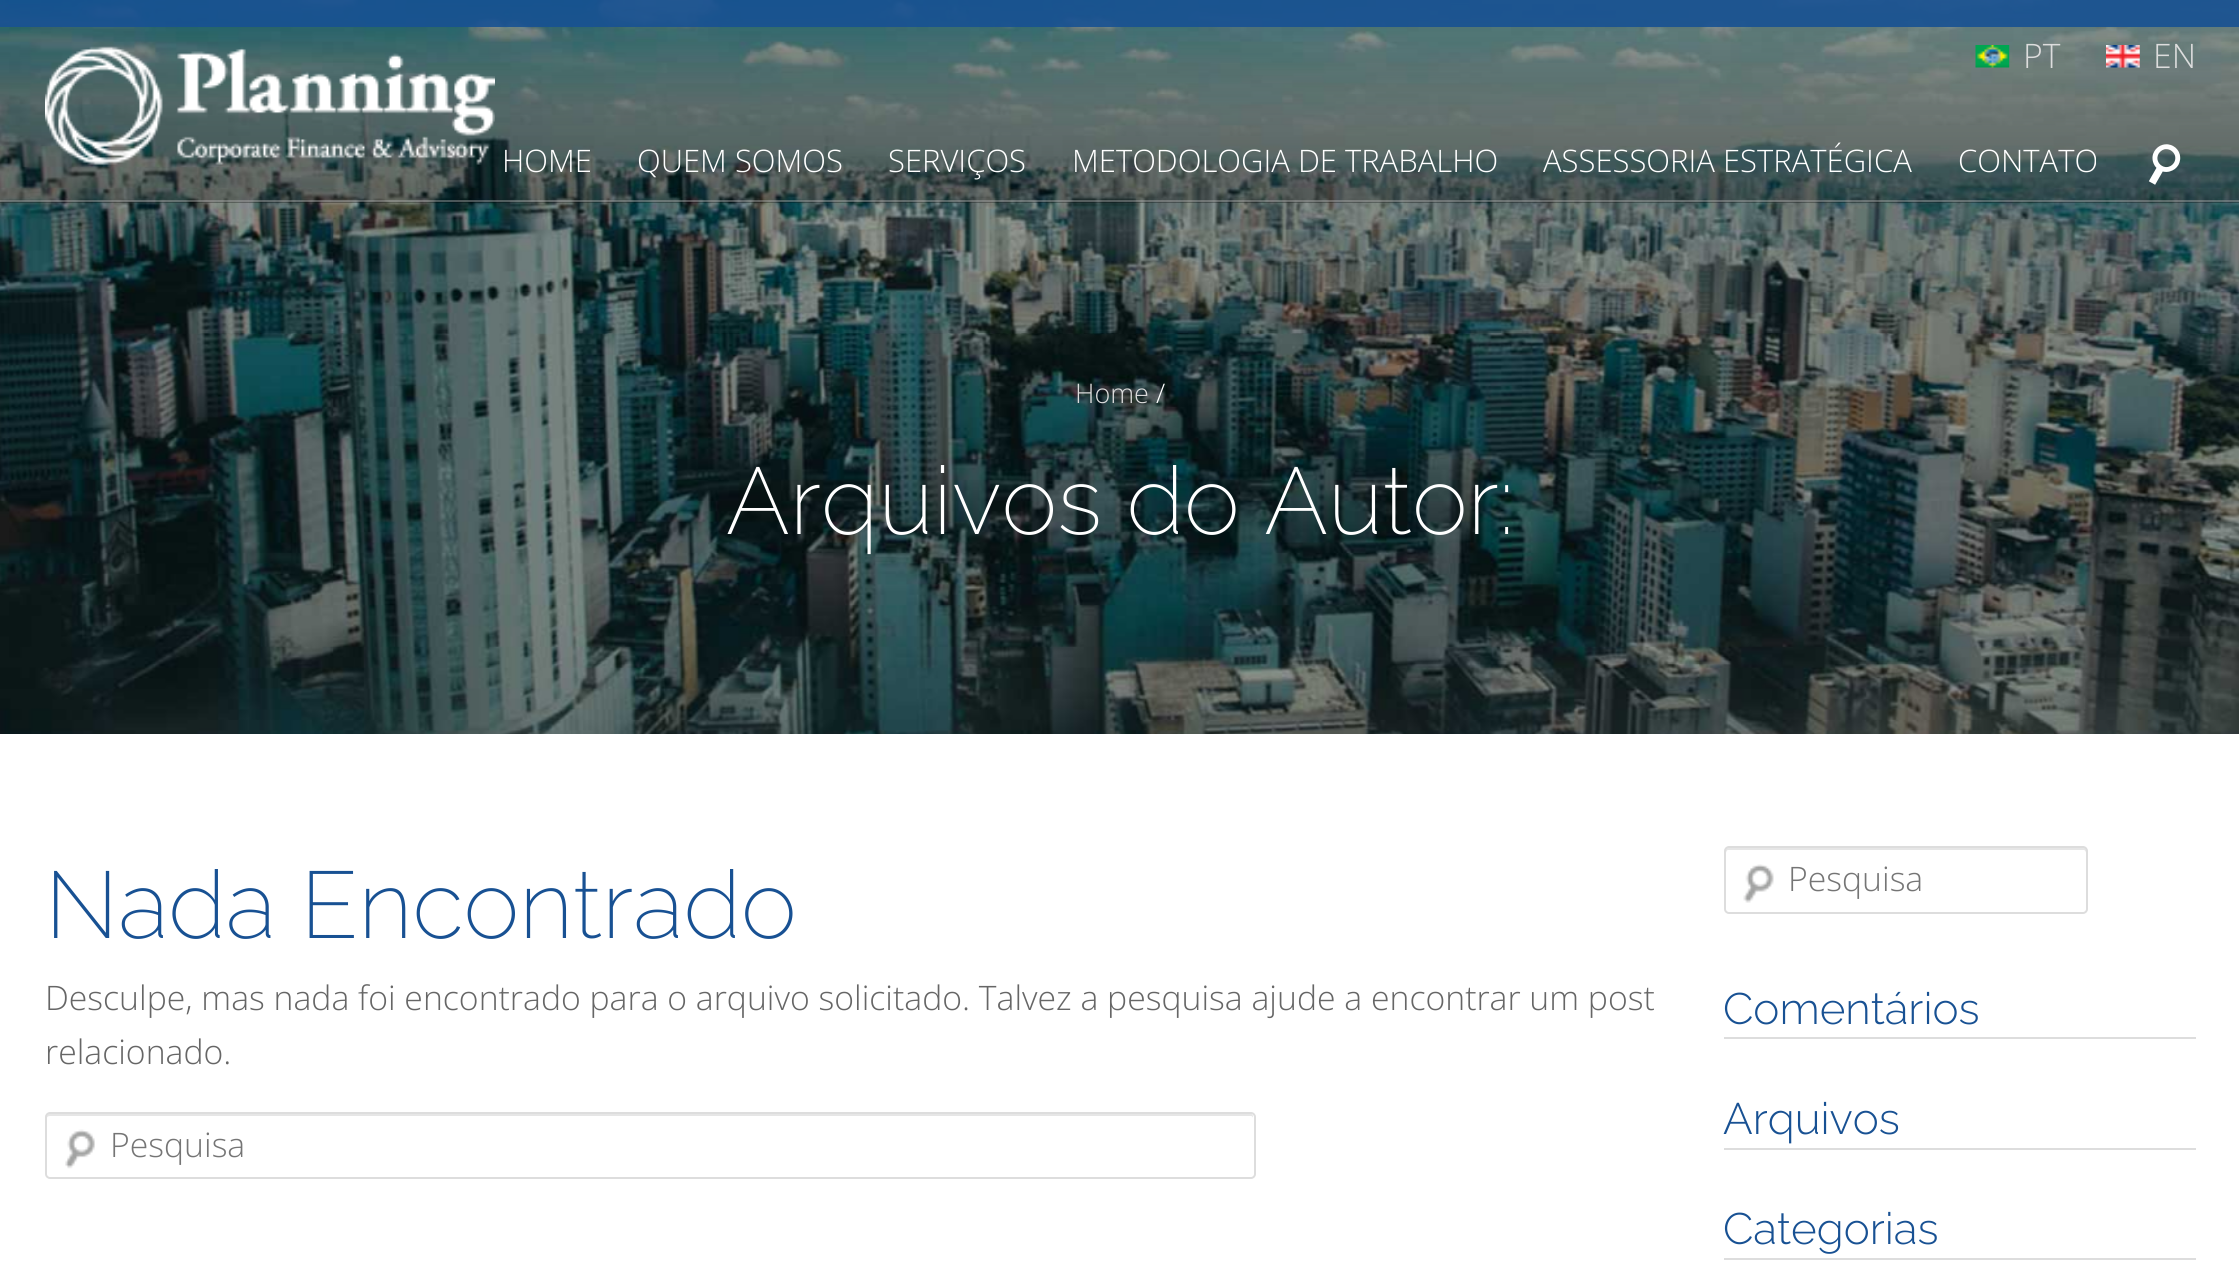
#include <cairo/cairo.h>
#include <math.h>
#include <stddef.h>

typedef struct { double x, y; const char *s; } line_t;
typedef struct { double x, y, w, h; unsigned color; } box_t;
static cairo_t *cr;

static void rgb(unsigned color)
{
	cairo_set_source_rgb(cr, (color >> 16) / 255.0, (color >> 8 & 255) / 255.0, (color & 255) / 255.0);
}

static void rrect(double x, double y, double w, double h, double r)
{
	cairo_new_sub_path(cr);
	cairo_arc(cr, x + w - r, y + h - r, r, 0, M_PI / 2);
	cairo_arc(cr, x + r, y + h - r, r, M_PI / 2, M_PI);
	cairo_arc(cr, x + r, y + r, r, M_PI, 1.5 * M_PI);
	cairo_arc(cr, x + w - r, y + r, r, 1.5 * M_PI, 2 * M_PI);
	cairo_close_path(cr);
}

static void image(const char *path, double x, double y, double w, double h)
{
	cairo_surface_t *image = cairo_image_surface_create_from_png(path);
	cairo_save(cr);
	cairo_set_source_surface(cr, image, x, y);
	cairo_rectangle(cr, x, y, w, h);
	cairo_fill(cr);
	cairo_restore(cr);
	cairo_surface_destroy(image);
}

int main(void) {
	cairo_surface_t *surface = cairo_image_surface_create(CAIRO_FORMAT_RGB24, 2239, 1276);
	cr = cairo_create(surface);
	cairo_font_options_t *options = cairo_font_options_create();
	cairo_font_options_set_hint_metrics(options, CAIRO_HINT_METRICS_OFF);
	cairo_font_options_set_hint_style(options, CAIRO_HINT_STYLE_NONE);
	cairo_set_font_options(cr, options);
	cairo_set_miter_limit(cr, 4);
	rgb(0xffffff);
	cairo_paint(cr);
	image("img/5.png", 0, 0, 2239, 734);
	cairo_set_source_rgba(cr, 0.094, 0.318, 0.576, 0.9);
	cairo_rectangle(cr, 0, 0, 2239, 27);
	cairo_fill(cr);
	image("img/1.png", 45, 46, 450, 119);
	image("img/2.png", 1975, 45, 35, 23);
	image("img/3.png", 2106, 45, 34, 23);
	cairo_set_source_rgba(cr, 0.706, 0.706, 0.706, 0.4);
	cairo_rectangle(cr, 0, 200, 2239, 2);
	cairo_fill(cr);
	image("img/4.png", 2148, 144, 33, 41);
	image("img/6.png", 65, 1129, 30, 40);
	rgb(0xe6e6e6);
	cairo_new_path(cr);
	cairo_move_to(cr, 50, 1116);
	cairo_line_to(cr, 1251, 1116);
	cairo_curve_to(cr, 1252, 1116, 1253, 1117, 1253, 1118);
	cairo_curve_to(cr, 1253, 1116, 1253, 1114, 1251, 1114);
	cairo_line_to(cr, 49, 1114);
	cairo_curve_to(cr, 47, 1114, 47, 1116, 47, 1118);
	cairo_curve_to(cr, 47, 1117, 48, 1116, 50, 1116);
	cairo_close_path(cr);
	cairo_fill(cr);
	rrect(46, 1113, 1209, 65, 4);
	rgb(0xdddddd);
	cairo_stroke(cr);
	image("img/7.png", 1743, 864, 31, 39);
	rgb(0xe6e6e6);
	cairo_new_path(cr);
	cairo_move_to(cr, 1728, 850);
	cairo_line_to(cr, 2084, 850);
	cairo_curve_to(cr, 2085, 850, 2086, 852, 2086, 853);
	cairo_line_to(cr, 2086, 850);
	cairo_curve_to(cr, 2086, 849, 2085, 848, 2084, 848);
	cairo_line_to(cr, 1728, 848);
	cairo_curve_to(cr, 1727, 848, 1726, 849, 1726, 850);
	cairo_line_to(cr, 1726, 853);
	cairo_curve_to(cr, 1726, 852, 1727, 850, 1728, 850);
	cairo_close_path(cr);
	cairo_fill(cr);
	rrect(1725, 847, 362, 66, 4);
	rgb(0xdddddd);
	cairo_stroke(cr);
	{
		static const box_t items[] = {
			{1724, 1037, 472, 2, 0xdddddd},
			{1724, 1148, 472, 2, 0xdddddd},
			{1724, 1258, 472, 2, 0xdddddd},
		};
		for (size_t i = 0; i < sizeof items / sizeof *items; i++) {
			rgb(items[i].color);
			cairo_rectangle(cr, items[i].x, items[i].y, items[i].w, items[i].h);
			cairo_fill(cr);
		}
	}
	cairo_select_font_face(cr, "Open Sans Light", CAIRO_FONT_SLANT_NORMAL, CAIRO_FONT_WEIGHT_NORMAL);
	cairo_set_font_size(cr, 33.75);
	cairo_move_to(cr, 2023, 68);
	cairo_show_text(cr, "PT");
	cairo_move_to(cr, 2153, 68);
	cairo_show_text(cr, "EN");
	cairo_set_font_size(cr, 31);
	rgb(0xffffff);
	{
		static const line_t items[] = {
			{502, 172, "HOME"},
			{637, 172, "QUEM SOMOS"},
			{888, 172, "SERVIÇOS"},
			{1072, 172, "METODOLOGIA DE TRABALHO"},
			{1543, 172, "ASSESSORIA ESTRATÉGICA"},
			{1958, 172, "CONTATO"},
		};
		for (size_t i = 0; i < sizeof items / sizeof *items; i++) {
			cairo_move_to(cr, items[i].x, items[i].y);
			cairo_show_text(cr, items[i].s);
		}
	}
	cairo_set_font_size(cr, 27);
	rgb(0xdddddd);
	cairo_move_to(cr, 1075, 403);
	cairo_show_text(cr, "Home");
	rgb(0xffffff);
	cairo_move_to(cr, 1156, 403);
	cairo_show_text(cr, "/");
	cairo_select_font_face(cr, "Raleway ExtraLight", CAIRO_FONT_SLANT_NORMAL, CAIRO_FONT_WEIGHT_NORMAL);
	cairo_set_font_size(cr, 94.5);
	cairo_move_to(cr, 726, 534);
	cairo_show_text(cr, "Arquivos do Autor:");
	rgb(0x185193);
	cairo_move_to(cr, 45, 938);
	cairo_show_text(cr, "Nada Encontrado");
	cairo_select_font_face(cr, "Open Sans Light", CAIRO_FONT_SLANT_NORMAL, CAIRO_FONT_WEIGHT_NORMAL);
	cairo_set_font_size(cr, 33.75);
	rgb(0x666666);
	cairo_move_to(cr, 45, 1010);
	cairo_show_text(cr, "Desculpe, mas nada foi encontrado para o arquivo solicitado. Talvez a pesquisa ajude a encontrar um post");
	cairo_move_to(cr, 45, 1064);
	cairo_show_text(cr, "relacionado.");
	rgb(0x757575);
	cairo_move_to(cr, 110, 1157);
	cairo_show_text(cr, "Pesquisa");
	cairo_move_to(cr, 1788, 891);
	cairo_show_text(cr, "Pesquisa");
	cairo_select_font_face(cr, "Raleway Light", CAIRO_FONT_SLANT_NORMAL, CAIRO_FONT_WEIGHT_NORMAL);
	cairo_set_font_size(cr, 44);
	rgb(0x185193);
	{
		static const line_t items[] = {
			{1723, 1024, "Comentários"},
			{1723, 1134, "Arquivos"},
			{1723, 1244, "Categorias"},
		};
		for (size_t i = 0; i < sizeof items / sizeof *items; i++) {
			cairo_move_to(cr, items[i].x, items[i].y);
			cairo_show_text(cr, items[i].s);
		}
	}
	cairo_surface_write_to_png(surface, "page.png");
	cairo_font_options_destroy(options);
	cairo_destroy(cr);
	cairo_surface_destroy(surface);
	return 0;
}
